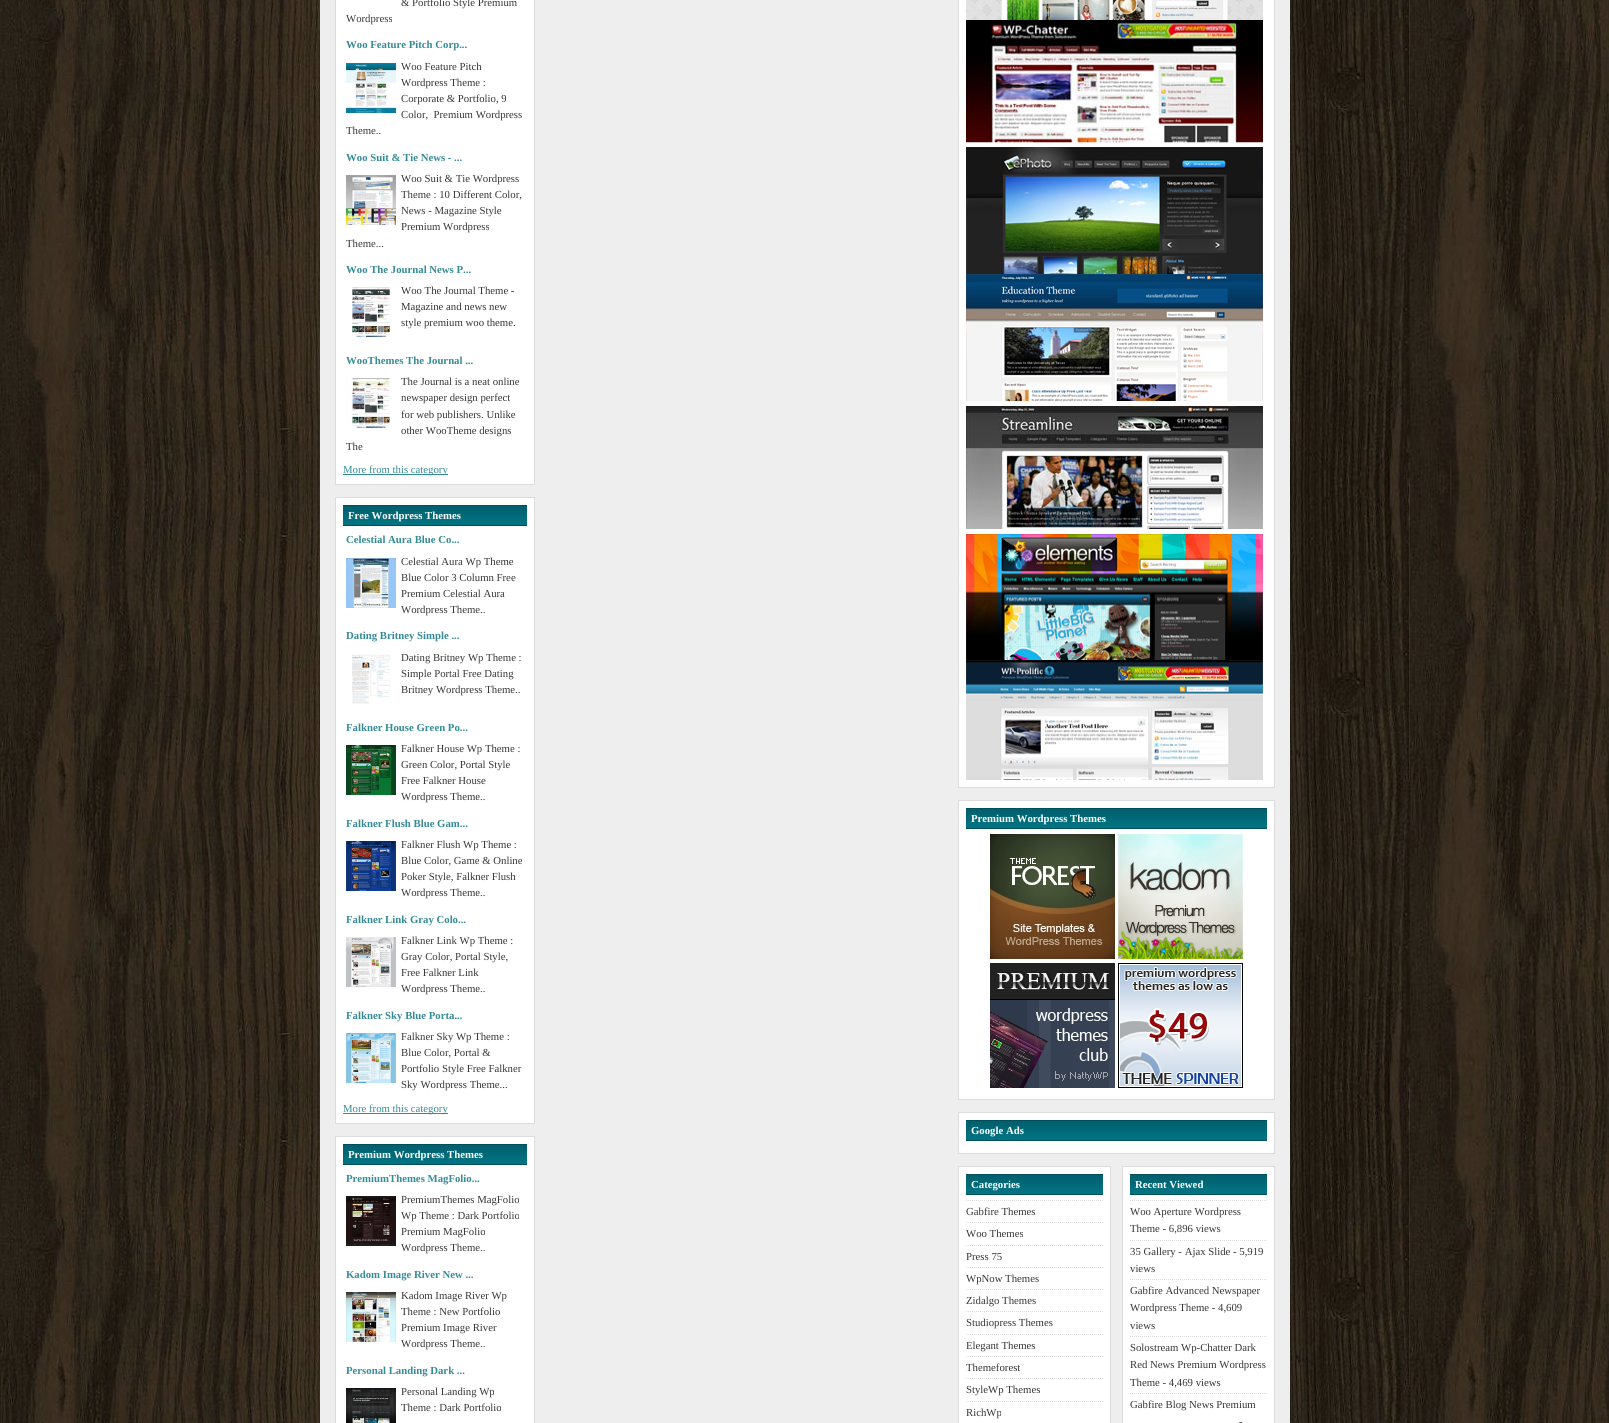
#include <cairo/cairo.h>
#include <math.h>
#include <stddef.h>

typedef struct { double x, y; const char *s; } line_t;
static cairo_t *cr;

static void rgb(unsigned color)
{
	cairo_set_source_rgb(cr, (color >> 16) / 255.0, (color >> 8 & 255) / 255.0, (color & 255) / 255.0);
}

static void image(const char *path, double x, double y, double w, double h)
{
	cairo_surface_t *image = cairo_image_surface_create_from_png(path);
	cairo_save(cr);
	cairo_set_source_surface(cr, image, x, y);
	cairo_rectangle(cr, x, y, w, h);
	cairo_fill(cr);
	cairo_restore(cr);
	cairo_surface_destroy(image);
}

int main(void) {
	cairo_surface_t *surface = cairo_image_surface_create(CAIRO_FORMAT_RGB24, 1609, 1423);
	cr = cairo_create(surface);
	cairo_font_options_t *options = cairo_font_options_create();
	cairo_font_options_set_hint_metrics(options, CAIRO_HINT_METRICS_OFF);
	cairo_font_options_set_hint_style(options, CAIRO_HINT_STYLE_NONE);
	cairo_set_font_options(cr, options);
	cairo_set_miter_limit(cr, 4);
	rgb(0xffffff);
	cairo_paint(cr);
	image("img/1.png", 0, 0, 1609, 1423);
	rgb(0xeeeeee);
	cairo_rectangle(cr, 320, 0, 970, 1423);
	cairo_fill(cr);
	rgb(0xffffff);
	cairo_rectangle(cr, 335.5, -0.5, 199, 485);
	cairo_fill_preserve(cr);
	rgb(0xdcdcdc);
	cairo_set_line_width(cr, 1);
	cairo_stroke(cr);
	image("img/2.png", 346, 63, 50, 50);
	image("img/3.png", 346, 175, 50, 50);
	image("img/4.png", 352, 287, 38, 50);
	image("img/5.png", 346, 378, 44, 50);
	rgb(0x358b96);
	cairo_rectangle(cr, 343, 474, 105, 1);
	cairo_fill(cr);
	rgb(0xffffff);
	cairo_rectangle(cr, 335.5, 497.5, 199, 626);
	cairo_fill_preserve(cr);
	rgb(0xdcdcdc);
	cairo_stroke(cr);
	image("img/6.png", 343, 505, 184, 21);
	image("img/7.png", 346, 558, 50, 50);
	image("img/8.png", 352, 654, 39, 50);
	image("img/9.png", 346, 745, 50, 50);
	image("img/10.png", 346, 841, 50, 50);
	image("img/11.png", 346, 937, 50, 50);
	image("img/12.png", 346, 1033, 50, 50);
	rgb(0x358b96);
	cairo_rectangle(cr, 343, 1113, 105, 1);
	cairo_fill(cr);
	rgb(0xffffff);
	cairo_rectangle(cr, 335.5, 1136.5, 199, 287);
	cairo_fill_preserve(cr);
	rgb(0xdcdcdc);
	cairo_stroke(cr);
	image("img/6.png", 343, 1144, 184, 21);
	image("img/13.png", 346, 1196, 50, 50);
	image("img/14.png", 346, 1292, 50, 50);
	image("img/15.png", 346, 1388, 50, 35);
	rgb(0xffffff);
	cairo_rectangle(cr, 958.5, -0.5, 316, 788);
	cairo_fill_preserve(cr);
	rgb(0xdcdcdc);
	cairo_stroke(cr);
	image("img/16.png", 966, 0, 297, 20);
	image("img/17.png", 966, 20, 297, 123);
	image("img/18.png", 966, 147, 297, 127);
	image("img/19.png", 966, 274, 297, 127);
	image("img/20.png", 966, 401, 297, 128);
	image("img/21.png", 966, 534, 297, 126);
	image("img/22.png", 966, 660, 297, 120);
	rgb(0xffffff);
	cairo_rectangle(cr, 958.5, 800.5, 316, 299);
	cairo_fill_preserve(cr);
	rgb(0xdcdcdc);
	cairo_stroke(cr);
	image("img/23.png", 966, 808, 301, 21);
	image("img/24.png", 990, 834, 125, 125);
	image("img/25.png", 1118, 834, 125, 125);
	image("img/26.png", 990, 963, 125, 125);
	image("img/27.png", 1118, 963, 125, 125);
	rgb(0xffffff);
	cairo_rectangle(cr, 958.5, 1112.5, 316, 41);
	cairo_fill_preserve(cr);
	rgb(0xdcdcdc);
	cairo_stroke(cr);
	image("img/23.png", 966, 1120, 301, 21);
	rgb(0xffffff);
	cairo_rectangle(cr, 958.5, 1166.5, 152, 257);
	cairo_fill_preserve(cr);
	rgb(0xdcdcdc);
	cairo_stroke(cr);
	image("img/28.png", 966, 1174, 137, 21);
	cairo_new_path(cr);
	cairo_move_to(cr, 966, 1200.5);
	cairo_line_to(cr, 1103, 1200.5);
	cairo_set_dash(cr, (double[]){1, 1}, 2, 0);
	cairo_stroke(cr);
	cairo_new_path(cr);
	cairo_move_to(cr, 966, 1222.5);
	cairo_line_to(cr, 1103, 1222.5);
	cairo_stroke(cr);
	cairo_new_path(cr);
	cairo_move_to(cr, 966, 1245.5);
	cairo_line_to(cr, 1103, 1245.5);
	cairo_stroke(cr);
	cairo_new_path(cr);
	cairo_move_to(cr, 966, 1267.5);
	cairo_line_to(cr, 1103, 1267.5);
	cairo_stroke(cr);
	cairo_new_path(cr);
	cairo_move_to(cr, 966, 1289.5);
	cairo_line_to(cr, 1103, 1289.5);
	cairo_stroke(cr);
	cairo_new_path(cr);
	cairo_move_to(cr, 966, 1311.5);
	cairo_line_to(cr, 1103, 1311.5);
	cairo_stroke(cr);
	cairo_new_path(cr);
	cairo_move_to(cr, 966, 1334.5);
	cairo_line_to(cr, 1103, 1334.5);
	cairo_stroke(cr);
	cairo_new_path(cr);
	cairo_move_to(cr, 966, 1356.5);
	cairo_line_to(cr, 1103, 1356.5);
	cairo_stroke(cr);
	cairo_new_path(cr);
	cairo_move_to(cr, 966, 1378.5);
	cairo_line_to(cr, 1103, 1378.5);
	cairo_stroke(cr);
	cairo_new_path(cr);
	cairo_move_to(cr, 966, 1401.5);
	cairo_line_to(cr, 1103, 1401.5);
	cairo_stroke(cr);
	rgb(0xffffff);
	cairo_rectangle(cr, 1122.5, 1166.5, 152, 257);
	cairo_fill_preserve(cr);
	rgb(0xdcdcdc);
	cairo_set_dash(cr, NULL, 0, 0);
	cairo_stroke(cr);
	image("img/28.png", 1130, 1174, 137, 21);
	cairo_new_path(cr);
	cairo_move_to(cr, 1130, 1200.5);
	cairo_line_to(cr, 1267, 1200.5);
	cairo_set_dash(cr, (double[]){1, 1}, 2, 0);
	cairo_stroke(cr);
	cairo_new_path(cr);
	cairo_move_to(cr, 1130, 1240.5);
	cairo_line_to(cr, 1267, 1240.5);
	cairo_stroke(cr);
	cairo_new_path(cr);
	cairo_move_to(cr, 1130, 1279.5);
	cairo_line_to(cr, 1267, 1279.5);
	cairo_stroke(cr);
	cairo_new_path(cr);
	cairo_move_to(cr, 1130, 1336.5);
	cairo_line_to(cr, 1267, 1336.5);
	cairo_stroke(cr);
	cairo_new_path(cr);
	cairo_move_to(cr, 1130, 1393.5);
	cairo_line_to(cr, 1267, 1393.5);
	cairo_stroke(cr);
	cairo_select_font_face(cr, "Liberation Serif", CAIRO_FONT_SLANT_NORMAL, CAIRO_FONT_WEIGHT_NORMAL);
	cairo_set_font_size(cr, 10.75);
	rgb(0x363636);
	cairo_move_to(cr, 401, 6);
	cairo_show_text(cr, "& Portfolio Style Premium");
	cairo_move_to(cr, 346, 22);
	cairo_show_text(cr, "Wordpress");
	cairo_select_font_face(cr, "Liberation Serif", CAIRO_FONT_SLANT_NORMAL, CAIRO_FONT_WEIGHT_BOLD);
	rgb(0x358b96);
	cairo_move_to(cr, 346, 48);
	cairo_show_text(cr, "Woo Feature Pitch Corp...");
	cairo_select_font_face(cr, "Liberation Serif", CAIRO_FONT_SLANT_NORMAL, CAIRO_FONT_WEIGHT_NORMAL);
	rgb(0x363636);
	{
		static const line_t items[] = {
			{401, 70, "Woo Feature Pitch"},
			{401, 86, "Wordpress Theme :"},
			{401, 102, "Corporate & Portfolio, 9"},
			{401, 118, "Color,  Premium Wordpress"},
			{346, 134, "Theme.."},
		};
		for (size_t i = 0; i < sizeof items / sizeof *items; i++) {
			cairo_move_to(cr, items[i].x, items[i].y);
			cairo_show_text(cr, items[i].s);
		}
	}
	cairo_select_font_face(cr, "Liberation Serif", CAIRO_FONT_SLANT_NORMAL, CAIRO_FONT_WEIGHT_BOLD);
	rgb(0x358b96);
	cairo_move_to(cr, 346, 161);
	cairo_show_text(cr, "Woo Suit & Tie News - ...");
	cairo_select_font_face(cr, "Liberation Serif", CAIRO_FONT_SLANT_NORMAL, CAIRO_FONT_WEIGHT_NORMAL);
	rgb(0x363636);
	{
		static const line_t items[] = {
			{401, 182, "Woo Suit & Tie Wordpress"},
			{401, 198, "Theme : 10 Different Color,"},
			{401, 214, "News - Magazine Style"},
			{401, 230, "Premium Wordpress"},
			{346, 247, "Theme..."},
		};
		for (size_t i = 0; i < sizeof items / sizeof *items; i++) {
			cairo_move_to(cr, items[i].x, items[i].y);
			cairo_show_text(cr, items[i].s);
		}
	}
	cairo_select_font_face(cr, "Liberation Serif", CAIRO_FONT_SLANT_NORMAL, CAIRO_FONT_WEIGHT_BOLD);
	rgb(0x358b96);
	cairo_move_to(cr, 346, 273);
	cairo_show_text(cr, "Woo The Journal News P...");
	cairo_select_font_face(cr, "Liberation Serif", CAIRO_FONT_SLANT_NORMAL, CAIRO_FONT_WEIGHT_NORMAL);
	rgb(0x363636);
	{
		static const line_t items[] = {
			{401, 294, "Woo The Journal Theme -"},
			{401, 310, "Magazine and news new"},
			{401, 326, "style premium woo theme."},
		};
		for (size_t i = 0; i < sizeof items / sizeof *items; i++) {
			cairo_move_to(cr, items[i].x, items[i].y);
			cairo_show_text(cr, items[i].s);
		}
	}
	cairo_select_font_face(cr, "Liberation Serif", CAIRO_FONT_SLANT_NORMAL, CAIRO_FONT_WEIGHT_BOLD);
	rgb(0x358b96);
	cairo_move_to(cr, 346, 364);
	cairo_show_text(cr, "WooThemes The Journal ...");
	cairo_select_font_face(cr, "Liberation Serif", CAIRO_FONT_SLANT_NORMAL, CAIRO_FONT_WEIGHT_NORMAL);
	rgb(0x363636);
	{
		static const line_t items[] = {
			{401, 385, "The Journal is a neat online"},
			{401, 401, "newspaper design perfect"},
			{401, 418, "for web publishers. Unlike"},
			{401, 434, "other WooTheme designs"},
			{346, 450, "The"},
		};
		for (size_t i = 0; i < sizeof items / sizeof *items; i++) {
			cairo_move_to(cr, items[i].x, items[i].y);
			cairo_show_text(cr, items[i].s);
		}
	}
	rgb(0x358b96);
	cairo_move_to(cr, 343, 473);
	cairo_show_text(cr, "More from this category");
	cairo_select_font_face(cr, "Liberation Serif", CAIRO_FONT_SLANT_NORMAL, CAIRO_FONT_WEIGHT_BOLD);
	rgb(0xffffff);
	cairo_move_to(cr, 348, 519);
	cairo_show_text(cr, "Free Wordpress Themes");
	rgb(0x358b96);
	cairo_move_to(cr, 346, 543);
	cairo_show_text(cr, "Celestial Aura Blue Co...");
	cairo_select_font_face(cr, "Liberation Serif", CAIRO_FONT_SLANT_NORMAL, CAIRO_FONT_WEIGHT_NORMAL);
	rgb(0x363636);
	{
		static const line_t items[] = {
			{401, 565, "Celestial Aura Wp Theme"},
			{401, 581, "Blue Color 3 Column Free"},
			{401, 597, "Premium Celestial Aura"},
			{401, 613, "Wordpress Theme.."},
		};
		for (size_t i = 0; i < sizeof items / sizeof *items; i++) {
			cairo_move_to(cr, items[i].x, items[i].y);
			cairo_show_text(cr, items[i].s);
		}
	}
	cairo_select_font_face(cr, "Liberation Serif", CAIRO_FONT_SLANT_NORMAL, CAIRO_FONT_WEIGHT_BOLD);
	rgb(0x358b96);
	cairo_move_to(cr, 346, 639);
	cairo_show_text(cr, "Dating Britney Simple ...");
	cairo_select_font_face(cr, "Liberation Serif", CAIRO_FONT_SLANT_NORMAL, CAIRO_FONT_WEIGHT_NORMAL);
	rgb(0x363636);
	{
		static const line_t items[] = {
			{401, 661, "Dating Britney Wp Theme :"},
			{401, 677, "Simple Portal Free Dating"},
			{401, 693, "Britney Wordpress Theme.."},
		};
		for (size_t i = 0; i < sizeof items / sizeof *items; i++) {
			cairo_move_to(cr, items[i].x, items[i].y);
			cairo_show_text(cr, items[i].s);
		}
	}
	cairo_select_font_face(cr, "Liberation Serif", CAIRO_FONT_SLANT_NORMAL, CAIRO_FONT_WEIGHT_BOLD);
	rgb(0x358b96);
	cairo_move_to(cr, 346, 731);
	cairo_show_text(cr, "Falkner House Green Po...");
	cairo_select_font_face(cr, "Liberation Serif", CAIRO_FONT_SLANT_NORMAL, CAIRO_FONT_WEIGHT_NORMAL);
	rgb(0x363636);
	{
		static const line_t items[] = {
			{401, 752, "Falkner House Wp Theme :"},
			{401, 768, "Green Color, Portal Style"},
			{401, 784, "Free Falkner House"},
			{401, 800, "Wordpress Theme.."},
		};
		for (size_t i = 0; i < sizeof items / sizeof *items; i++) {
			cairo_move_to(cr, items[i].x, items[i].y);
			cairo_show_text(cr, items[i].s);
		}
	}
	cairo_select_font_face(cr, "Liberation Serif", CAIRO_FONT_SLANT_NORMAL, CAIRO_FONT_WEIGHT_BOLD);
	rgb(0x358b96);
	cairo_move_to(cr, 346, 827);
	cairo_show_text(cr, "Falkner Flush Blue Gam...");
	cairo_select_font_face(cr, "Liberation Serif", CAIRO_FONT_SLANT_NORMAL, CAIRO_FONT_WEIGHT_NORMAL);
	rgb(0x363636);
	{
		static const line_t items[] = {
			{401, 848, "Falkner Flush Wp Theme :"},
			{401, 864, "Blue Color, Game & Online"},
			{401, 880, "Poker Style, Falkner Flush"},
			{401, 896, "Wordpress Theme.."},
		};
		for (size_t i = 0; i < sizeof items / sizeof *items; i++) {
			cairo_move_to(cr, items[i].x, items[i].y);
			cairo_show_text(cr, items[i].s);
		}
	}
	cairo_select_font_face(cr, "Liberation Serif", CAIRO_FONT_SLANT_NORMAL, CAIRO_FONT_WEIGHT_BOLD);
	rgb(0x358b96);
	cairo_move_to(cr, 346, 923);
	cairo_show_text(cr, "Falkner Link Gray Colo...");
	cairo_select_font_face(cr, "Liberation Serif", CAIRO_FONT_SLANT_NORMAL, CAIRO_FONT_WEIGHT_NORMAL);
	rgb(0x363636);
	{
		static const line_t items[] = {
			{401, 944, "Falkner Link Wp Theme :"},
			{401, 960, "Gray Color, Portal Style,"},
			{401, 976, "Free Falkner Link"},
			{401, 992, "Wordpress Theme.."},
		};
		for (size_t i = 0; i < sizeof items / sizeof *items; i++) {
			cairo_move_to(cr, items[i].x, items[i].y);
			cairo_show_text(cr, items[i].s);
		}
	}
	cairo_select_font_face(cr, "Liberation Serif", CAIRO_FONT_SLANT_NORMAL, CAIRO_FONT_WEIGHT_BOLD);
	rgb(0x358b96);
	cairo_move_to(cr, 346, 1019);
	cairo_show_text(cr, "Falkner Sky Blue Porta...");
	cairo_select_font_face(cr, "Liberation Serif", CAIRO_FONT_SLANT_NORMAL, CAIRO_FONT_WEIGHT_NORMAL);
	rgb(0x363636);
	{
		static const line_t items[] = {
			{401, 1040, "Falkner Sky Wp Theme :"},
			{401, 1056, "Blue Color, Portal &"},
			{401, 1072, "Portfolio Style Free Falkner"},
			{401, 1088, "Sky Wordpress Theme..."},
		};
		for (size_t i = 0; i < sizeof items / sizeof *items; i++) {
			cairo_move_to(cr, items[i].x, items[i].y);
			cairo_show_text(cr, items[i].s);
		}
	}
	rgb(0x358b96);
	cairo_move_to(cr, 343, 1112);
	cairo_show_text(cr, "More from this category");
	cairo_select_font_face(cr, "Liberation Serif", CAIRO_FONT_SLANT_NORMAL, CAIRO_FONT_WEIGHT_BOLD);
	rgb(0xffffff);
	cairo_move_to(cr, 348, 1158);
	cairo_show_text(cr, "Premium Wordpress Themes");
	rgb(0x358b96);
	cairo_move_to(cr, 346, 1182);
	cairo_show_text(cr, "PremiumThemes MagFolio...");
	cairo_select_font_face(cr, "Liberation Serif", CAIRO_FONT_SLANT_NORMAL, CAIRO_FONT_WEIGHT_NORMAL);
	rgb(0x363636);
	{
		static const line_t items[] = {
			{401, 1203, "PremiumThemes MagFolio"},
			{401, 1219, "Wp Theme : Dark Portfolio"},
			{401, 1235, "Premium MagFolio"},
			{401, 1251, "Wordpress Theme.."},
		};
		for (size_t i = 0; i < sizeof items / sizeof *items; i++) {
			cairo_move_to(cr, items[i].x, items[i].y);
			cairo_show_text(cr, items[i].s);
		}
	}
	cairo_select_font_face(cr, "Liberation Serif", CAIRO_FONT_SLANT_NORMAL, CAIRO_FONT_WEIGHT_BOLD);
	rgb(0x358b96);
	cairo_move_to(cr, 346, 1278);
	cairo_show_text(cr, "Kadom Image River New ...");
	cairo_select_font_face(cr, "Liberation Serif", CAIRO_FONT_SLANT_NORMAL, CAIRO_FONT_WEIGHT_NORMAL);
	rgb(0x363636);
	{
		static const line_t items[] = {
			{401, 1299, "Kadom Image River Wp"},
			{401, 1315, "Theme : New Portfolio"},
			{401, 1331, "Premium Image River"},
			{401, 1347, "Wordpress Theme.."},
		};
		for (size_t i = 0; i < sizeof items / sizeof *items; i++) {
			cairo_move_to(cr, items[i].x, items[i].y);
			cairo_show_text(cr, items[i].s);
		}
	}
	cairo_select_font_face(cr, "Liberation Serif", CAIRO_FONT_SLANT_NORMAL, CAIRO_FONT_WEIGHT_BOLD);
	rgb(0x358b96);
	cairo_move_to(cr, 346, 1374);
	cairo_show_text(cr, "Personal Landing Dark ...");
	cairo_select_font_face(cr, "Liberation Serif", CAIRO_FONT_SLANT_NORMAL, CAIRO_FONT_WEIGHT_NORMAL);
	rgb(0x363636);
	cairo_move_to(cr, 401, 1395);
	cairo_show_text(cr, "Personal Landing Wp");
	cairo_move_to(cr, 401, 1411);
	cairo_show_text(cr, "Theme : Dark Portfolio");
	cairo_select_font_face(cr, "Liberation Serif", CAIRO_FONT_SLANT_NORMAL, CAIRO_FONT_WEIGHT_BOLD);
	rgb(0xffffff);
	{
		static const line_t items[] = {
			{971, 822, "Premium Wordpress Themes"},
			{971, 1134, "Google Ads"},
			{971, 1188, "Categories"},
		};
		for (size_t i = 0; i < sizeof items / sizeof *items; i++) {
			cairo_move_to(cr, items[i].x, items[i].y);
			cairo_show_text(cr, items[i].s);
		}
	}
	cairo_select_font_face(cr, "Liberation Serif", CAIRO_FONT_SLANT_NORMAL, CAIRO_FONT_WEIGHT_NORMAL);
	rgb(0x363636);
	{
		static const line_t items[] = {
			{966, 1215, "Gabfire Themes"},
			{966, 1237, "Woo Themes"},
			{966, 1260, "Press 75"},
			{966, 1282, "WpNow Themes"},
			{966, 1304, "Zidalgo Themes"},
			{966, 1326, "Studiopress Themes"},
			{966, 1349, "Elegant Themes"},
			{966, 1371, "Themeforest"},
			{966, 1393, "StyleWp Themes"},
			{966, 1416, "RichWp"},
		};
		for (size_t i = 0; i < sizeof items / sizeof *items; i++) {
			cairo_move_to(cr, items[i].x, items[i].y);
			cairo_show_text(cr, items[i].s);
		}
	}
	cairo_select_font_face(cr, "Liberation Serif", CAIRO_FONT_SLANT_NORMAL, CAIRO_FONT_WEIGHT_BOLD);
	rgb(0xffffff);
	cairo_move_to(cr, 1135, 1188);
	cairo_show_text(cr, "Recent Viewed");
	cairo_select_font_face(cr, "Liberation Serif", CAIRO_FONT_SLANT_NORMAL, CAIRO_FONT_WEIGHT_NORMAL);
	rgb(0x363636);
	{
		static const line_t items[] = {
			{1130, 1215, "Woo Aperture Wordpress"},
			{1130, 1232, "Theme - 6,896 views"},
			{1130, 1255, "35 Gallery - Ajax Slide - 5,919"},
			{1130, 1272, "views"},
			{1130, 1294, "Gabfire Advanced Newspaper"},
			{1130, 1311, "Wordpress Theme - 4,609"},
			{1130, 1329, "views"},
			{1130, 1351, "Solostream Wp-Chatter Dark"},
			{1130, 1368, "Red News Premium Wordpress"},
			{1130, 1386, "Theme - 4,469 views"},
			{1130, 1408, "Gabfire Blog News Premium"},
			{1239, 1425, "-"},
		};
		for (size_t i = 0; i < sizeof items / sizeof *items; i++) {
			cairo_move_to(cr, items[i].x, items[i].y);
			cairo_show_text(cr, items[i].s);
		}
	}
	cairo_surface_write_to_png(surface, "page.png");
	cairo_font_options_destroy(options);
	cairo_destroy(cr);
	cairo_surface_destroy(surface);
	return 0;
}
